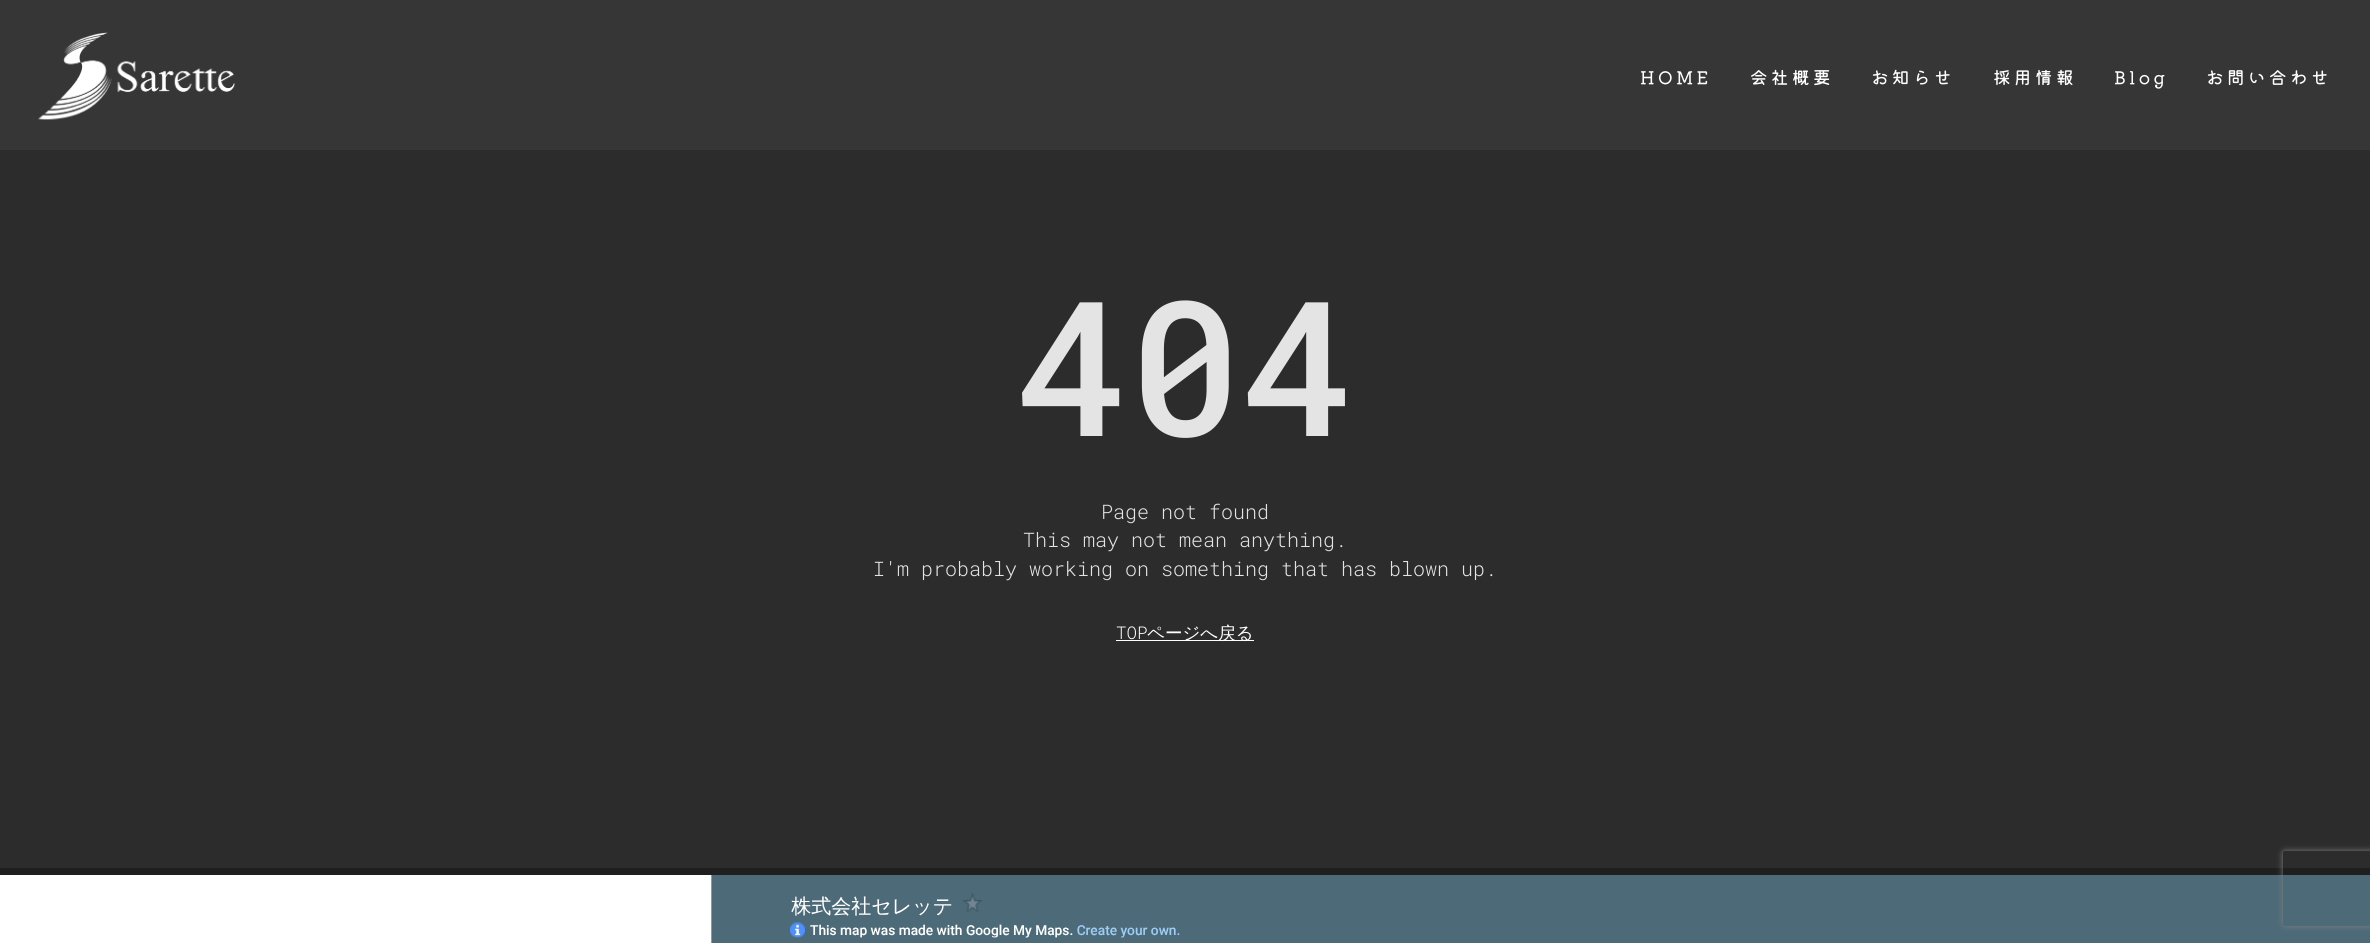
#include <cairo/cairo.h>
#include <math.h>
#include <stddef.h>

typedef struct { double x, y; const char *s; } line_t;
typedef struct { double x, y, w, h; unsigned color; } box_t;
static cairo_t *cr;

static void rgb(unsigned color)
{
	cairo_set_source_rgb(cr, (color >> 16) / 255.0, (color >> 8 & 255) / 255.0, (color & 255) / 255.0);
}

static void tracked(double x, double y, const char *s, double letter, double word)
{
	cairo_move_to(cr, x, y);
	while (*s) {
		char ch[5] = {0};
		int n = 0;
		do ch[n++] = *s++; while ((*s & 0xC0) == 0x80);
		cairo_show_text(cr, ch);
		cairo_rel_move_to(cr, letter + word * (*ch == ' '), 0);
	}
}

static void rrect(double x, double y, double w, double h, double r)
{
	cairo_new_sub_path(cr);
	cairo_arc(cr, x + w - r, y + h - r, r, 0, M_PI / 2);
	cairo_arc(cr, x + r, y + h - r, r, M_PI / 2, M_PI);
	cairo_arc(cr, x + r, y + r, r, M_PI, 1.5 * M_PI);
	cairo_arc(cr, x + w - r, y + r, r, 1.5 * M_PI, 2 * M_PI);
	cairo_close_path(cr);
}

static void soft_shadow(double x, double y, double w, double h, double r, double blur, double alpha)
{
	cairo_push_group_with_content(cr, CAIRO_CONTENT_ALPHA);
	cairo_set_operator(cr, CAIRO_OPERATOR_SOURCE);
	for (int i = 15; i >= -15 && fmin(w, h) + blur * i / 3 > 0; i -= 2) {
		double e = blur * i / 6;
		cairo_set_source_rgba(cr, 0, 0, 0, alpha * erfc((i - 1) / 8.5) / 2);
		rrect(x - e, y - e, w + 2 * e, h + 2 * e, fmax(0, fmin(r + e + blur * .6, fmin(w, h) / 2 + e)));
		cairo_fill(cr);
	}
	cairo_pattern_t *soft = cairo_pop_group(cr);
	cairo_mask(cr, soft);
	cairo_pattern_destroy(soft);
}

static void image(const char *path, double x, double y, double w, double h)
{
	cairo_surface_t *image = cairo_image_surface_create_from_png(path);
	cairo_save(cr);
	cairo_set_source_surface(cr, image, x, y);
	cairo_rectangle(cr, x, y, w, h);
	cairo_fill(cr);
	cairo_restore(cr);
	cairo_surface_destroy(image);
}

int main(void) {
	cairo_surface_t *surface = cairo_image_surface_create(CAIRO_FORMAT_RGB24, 2370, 943);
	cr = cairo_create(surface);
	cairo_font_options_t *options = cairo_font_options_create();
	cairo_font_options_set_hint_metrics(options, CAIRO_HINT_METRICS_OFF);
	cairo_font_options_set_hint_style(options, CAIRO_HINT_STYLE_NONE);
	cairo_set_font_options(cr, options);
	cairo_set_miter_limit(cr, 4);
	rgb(0x2c2c2c);
	cairo_paint(cr);
	rgb(0x363636);
	cairo_rectangle(cr, 0, 0, 2370, 150);
	cairo_fill(cr);
	image("img/1.png", 38, 32, 197, 88);
	{
		static const box_t items[] = {
			{1116, 640, 138, 1, 0xffffff},
			{0, 868, 2370, 7, 0x1f1f1f},
			{0, 875, 711, 68, 0xffffff},
		};
		for (size_t i = 0; i < sizeof items / sizeof *items; i++) {
			rgb(items[i].color);
			cairo_rectangle(cr, items[i].x, items[i].y, items[i].w, items[i].h);
			cairo_fill(cr);
		}
	}
	image("img/2.png", 711, 875, 1659, 68);
	cairo_save(cr);
	cairo_set_fill_rule(cr, CAIRO_FILL_RULE_EVEN_ODD);
	cairo_new_path(cr);
	cairo_move_to(cr, 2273, 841);
	cairo_line_to(cr, 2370, 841);
	cairo_line_to(cr, 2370, 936);
	cairo_line_to(cr, 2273, 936);
	cairo_close_path(cr);
	cairo_move_to(cr, 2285.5, 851);
	cairo_line_to(cr, 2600.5, 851);
	cairo_curve_to(cr, 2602, 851, 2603, 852, 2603, 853.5);
	cairo_line_to(cr, 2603, 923.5);
	cairo_curve_to(cr, 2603, 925, 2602, 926, 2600.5, 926);
	cairo_line_to(cr, 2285.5, 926);
	cairo_curve_to(cr, 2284, 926, 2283, 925, 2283, 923.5);
	cairo_line_to(cr, 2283, 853.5);
	cairo_curve_to(cr, 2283, 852, 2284, 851, 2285.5, 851);
	cairo_close_path(cr);
	cairo_clip(cr);
	rgb(0x808080);
	soft_shadow(2283, 851, 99, 75, 2.5, 3, 1);
	cairo_restore(cr);
	cairo_select_font_face(cr, "Kiwi Maru Medium", CAIRO_FONT_SLANT_NORMAL, CAIRO_FONT_WEIGHT_NORMAL);
	cairo_set_font_size(cr, 17.5);
	{
		static const line_t items[] = {
			{1640, 84, "HOME"},
			{1750, 84, "会社概要"},
			{1871, 84, "お知らせ"},
			{1993, 84, "採用情報"},
			{2114, 84, "Blog"},
			{2206, 84, "お問い合わせ"},
		};
		for (size_t i = 0; i < sizeof items / sizeof *items; i++) {
			tracked(items[i].x, items[i].y, items[i].s, 3.5, 0);
		}
	}
	cairo_select_font_face(cr, "Roboto Mono Medium", CAIRO_FONT_SLANT_NORMAL, CAIRO_FONT_WEIGHT_NORMAL);
	cairo_set_font_size(cr, 188);
	rgb(0xe4e4e4);
	cairo_move_to(cr, 1016, 436);
	cairo_show_text(cr, "404");
	cairo_select_font_face(cr, "Roboto Mono Light", CAIRO_FONT_SLANT_NORMAL, CAIRO_FONT_WEIGHT_NORMAL);
	cairo_set_font_size(cr, 20);
	{
		static const line_t items[] = {
			{1101, 519, "Page not found"},
			{1023, 547, "This may not mean anything."},
			{873, 576, "I'm probably working on something that has blown up."},
		};
		for (size_t i = 0; i < sizeof items / sizeof *items; i++) {
			cairo_move_to(cr, items[i].x, items[i].y);
			cairo_show_text(cr, items[i].s);
		}
	}
	cairo_set_font_size(cr, 17.5);
	rgb(0xffffff);
	cairo_move_to(cr, 1116, 639);
	cairo_show_text(cr, "TOP");
	cairo_select_font_face(cr, "WenQuanYi Zen Hei Medium", CAIRO_FONT_SLANT_NORMAL, CAIRO_FONT_WEIGHT_NORMAL);
	cairo_move_to(cr, 1147, 639);
	cairo_show_text(cr, "ページへ戻る");
	cairo_surface_write_to_png(surface, "page.png");
	cairo_font_options_destroy(options);
	cairo_destroy(cr);
	cairo_surface_destroy(surface);
	return 0;
}
